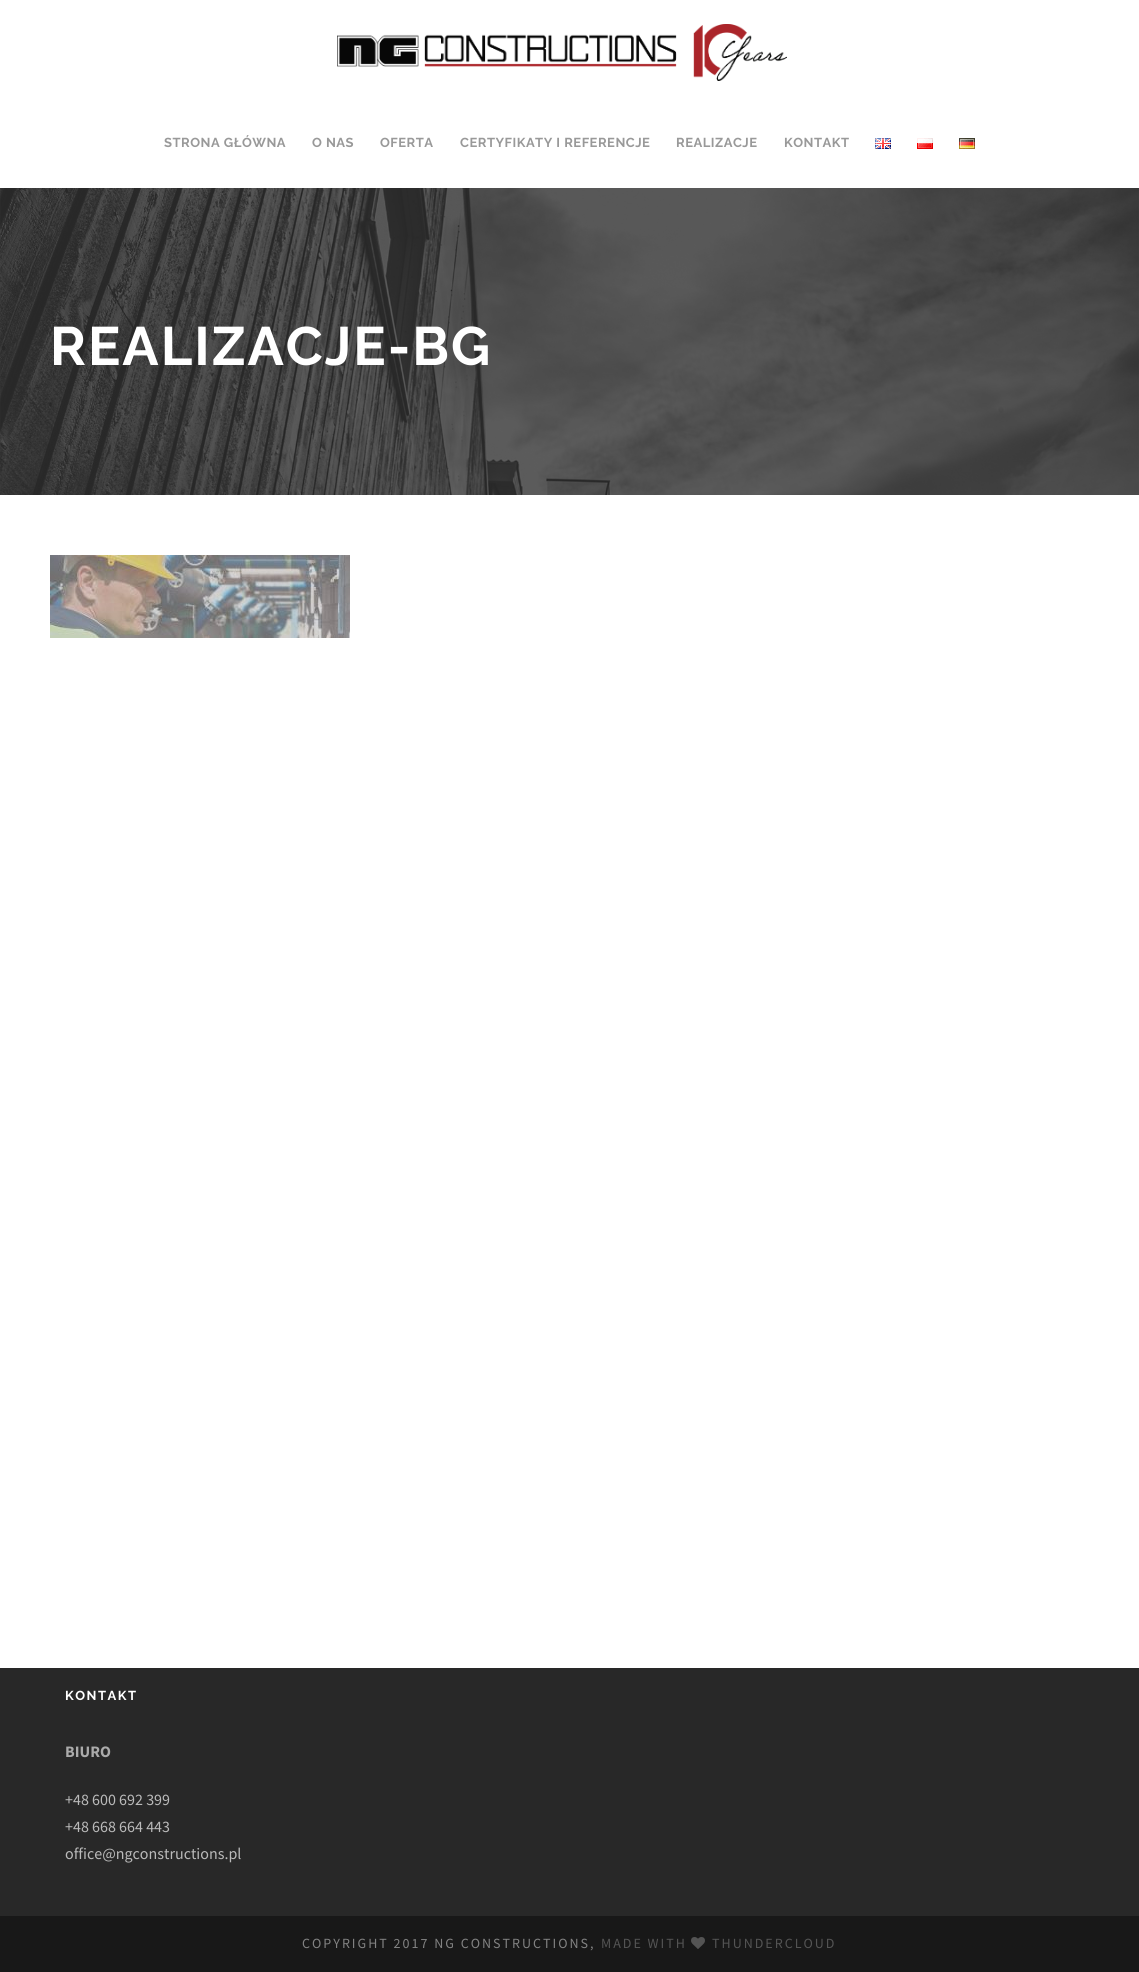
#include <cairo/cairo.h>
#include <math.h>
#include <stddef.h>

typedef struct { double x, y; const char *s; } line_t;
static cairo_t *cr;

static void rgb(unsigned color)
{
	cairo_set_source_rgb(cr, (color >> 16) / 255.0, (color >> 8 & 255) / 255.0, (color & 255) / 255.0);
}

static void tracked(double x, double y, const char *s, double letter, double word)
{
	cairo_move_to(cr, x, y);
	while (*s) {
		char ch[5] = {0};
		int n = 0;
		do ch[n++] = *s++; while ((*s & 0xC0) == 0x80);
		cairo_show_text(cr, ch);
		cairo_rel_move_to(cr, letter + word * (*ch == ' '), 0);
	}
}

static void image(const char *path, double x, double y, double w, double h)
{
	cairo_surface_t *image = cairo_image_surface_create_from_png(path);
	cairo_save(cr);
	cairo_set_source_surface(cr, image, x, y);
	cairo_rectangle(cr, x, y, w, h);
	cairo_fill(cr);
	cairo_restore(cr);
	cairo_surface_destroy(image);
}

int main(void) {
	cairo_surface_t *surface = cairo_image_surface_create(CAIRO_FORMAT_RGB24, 1139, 1972);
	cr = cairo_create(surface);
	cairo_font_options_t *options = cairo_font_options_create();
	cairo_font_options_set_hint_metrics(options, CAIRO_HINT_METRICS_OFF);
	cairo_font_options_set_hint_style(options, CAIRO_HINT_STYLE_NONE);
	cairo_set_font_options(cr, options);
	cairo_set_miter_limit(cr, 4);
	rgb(0xffffff);
	cairo_paint(cr);
	image("img/1.png", 337, 24, 450, 57);
	image("img/2.png", 875, 138, 16, 11);
	image("img/3.png", 917, 138, 16, 11);
	image("img/4.png", 959, 138, 16, 11);
	image("img/5.png", 0, 188, 1139, 307);
	image("img/6.png", 50, 555, 300, 83);
	rgb(0x282828);
	cairo_rectangle(cr, 0, 1668, 1139, 248);
	cairo_fill(cr);
	rgb(0x181818);
	cairo_rectangle(cr, 0, 1916, 1139, 56);
	cairo_fill(cr);
	image("img/7.png", 691, 1937, 14, 12);
	cairo_select_font_face(cr, "Raleway", CAIRO_FONT_SLANT_NORMAL, CAIRO_FONT_WEIGHT_BOLD);
	cairo_set_font_size(cr, 13);
	rgb(0x999999);
	{
		static const line_t items[] = {
			{164, 147, "STRONA GŁÓWNA"},
			{312, 147, "O NAS"},
			{380, 147, "OFERTA"},
			{460, 147, "CERTYFIKATY I REFERENCJE"},
			{676, 147, "REALIZACJE"},
			{784, 147, "KONTAKT"},
		};
		for (size_t i = 0; i < sizeof items / sizeof *items; i++) {
			tracked(items[i].x, items[i].y, items[i].s, 0.5, 0);
		}
	}
	cairo_set_font_size(cr, 54);
	rgb(0xffffff);
	tracked(50, 365, "REALIZACJE-BG", 2, 0);
	cairo_set_font_size(cr, 13);
	tracked(65, 1700, "KONTAKT", 1.5, 0);
	cairo_select_font_face(cr, "Source Sans Pro", CAIRO_FONT_SLANT_NORMAL, CAIRO_FONT_WEIGHT_BOLD);
	cairo_set_font_size(cr, 16);
	rgb(0xababab);
	cairo_move_to(cr, 65, 1757);
	cairo_show_text(cr, "BIURO");
	cairo_select_font_face(cr, "Source Sans Pro", CAIRO_FONT_SLANT_NORMAL, CAIRO_FONT_WEIGHT_NORMAL);
	rgb(0xbababa);
	{
		static const line_t items[] = {
			{65, 1805, "+48 600 692 399"},
			{65, 1832, "+48 668 664 443"},
			{65, 1859, "office@ngconstructions.pl"},
		};
		for (size_t i = 0; i < sizeof items / sizeof *items; i++) {
			cairo_move_to(cr, items[i].x, items[i].y);
			cairo_show_text(cr, items[i].s);
		}
	}
	cairo_set_font_size(cr, 14);
	rgb(0x838383);
	tracked(302, 1948, "COPYRIGHT 2017 NG CONSTRUCTIONS,", 2, 0);
	rgb(0x545454);
	tracked(601, 1948, "MADE WITH", 2, 0);
	tracked(712, 1948, "THUNDERCLOUD", 2, 0);
	cairo_surface_write_to_png(surface, "page.png");
	cairo_font_options_destroy(options);
	cairo_destroy(cr);
	cairo_surface_destroy(surface);
	return 0;
}
